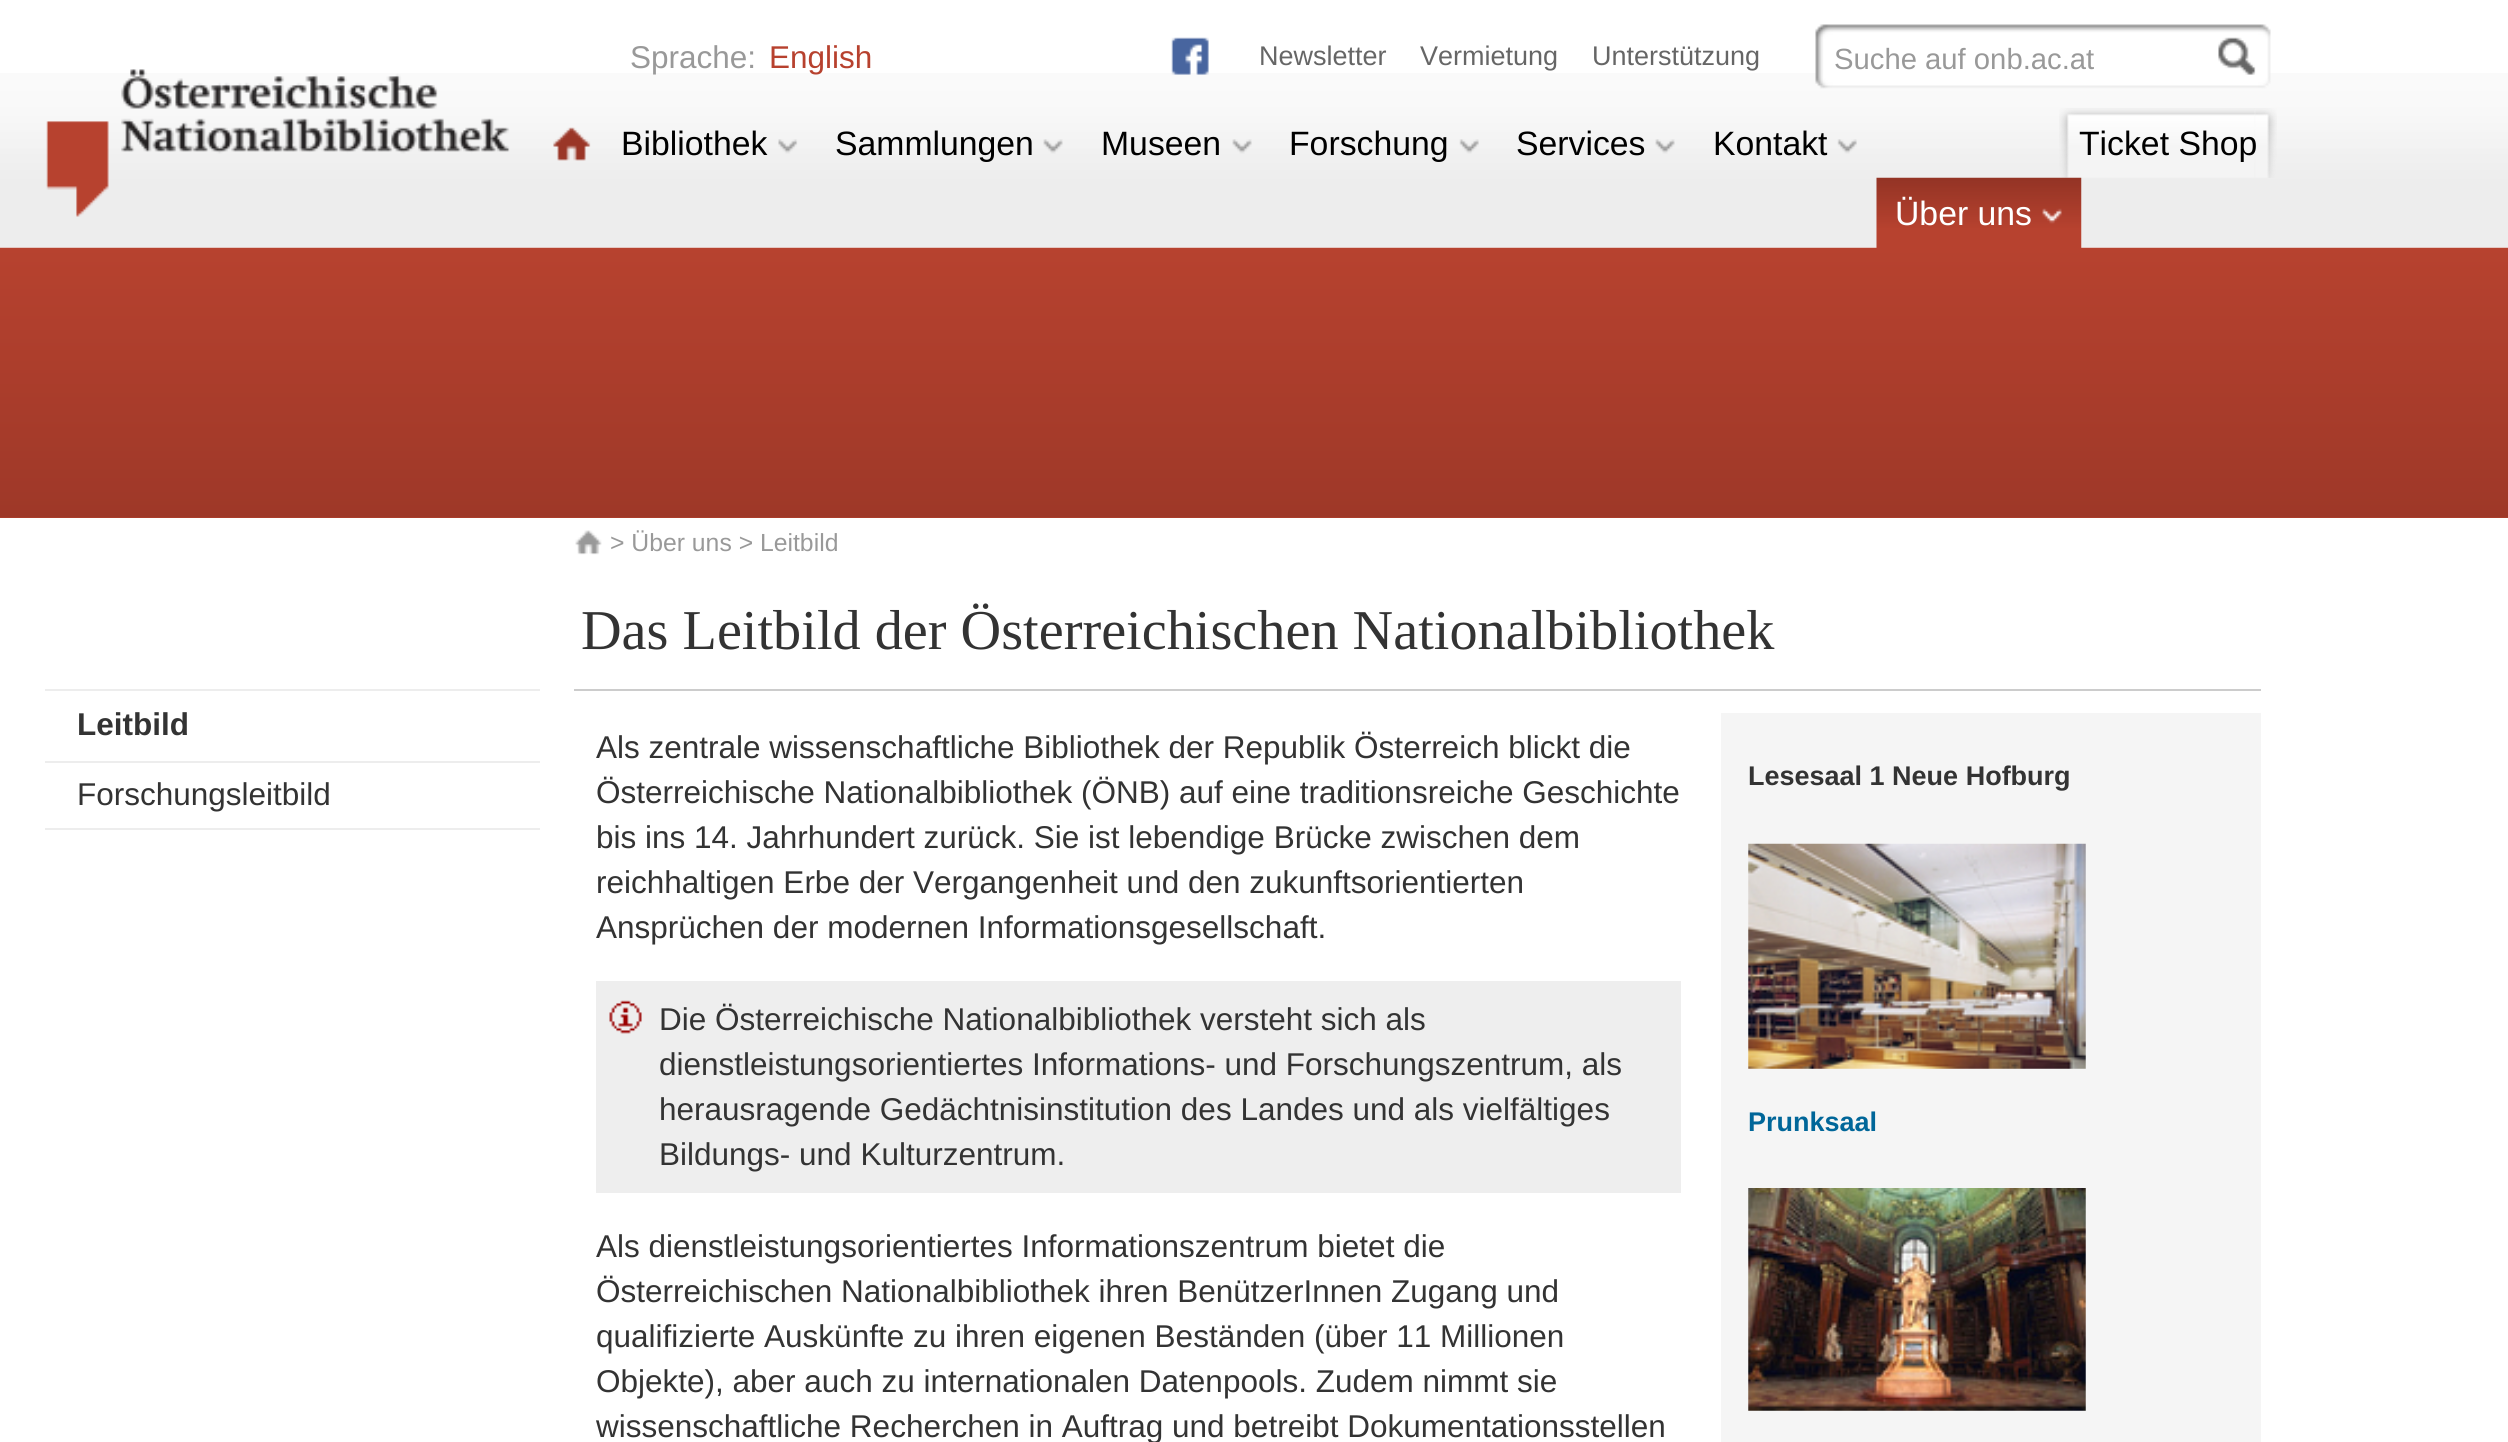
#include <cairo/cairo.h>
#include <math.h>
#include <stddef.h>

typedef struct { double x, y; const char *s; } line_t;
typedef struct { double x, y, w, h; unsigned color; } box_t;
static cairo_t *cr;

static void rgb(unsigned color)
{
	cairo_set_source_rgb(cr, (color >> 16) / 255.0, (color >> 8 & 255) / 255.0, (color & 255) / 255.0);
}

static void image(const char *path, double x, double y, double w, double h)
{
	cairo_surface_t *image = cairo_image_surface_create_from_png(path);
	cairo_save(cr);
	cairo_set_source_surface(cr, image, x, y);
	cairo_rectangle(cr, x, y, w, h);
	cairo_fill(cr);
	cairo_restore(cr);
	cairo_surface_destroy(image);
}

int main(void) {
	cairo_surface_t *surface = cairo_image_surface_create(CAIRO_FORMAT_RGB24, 2508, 1442);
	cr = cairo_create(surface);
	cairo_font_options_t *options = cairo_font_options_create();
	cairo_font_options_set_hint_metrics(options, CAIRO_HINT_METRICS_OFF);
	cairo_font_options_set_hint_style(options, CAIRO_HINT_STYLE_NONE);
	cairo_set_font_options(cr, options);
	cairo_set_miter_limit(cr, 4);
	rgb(0xffffff);
	cairo_paint(cr);
	rgb(0xb7422f);
	cairo_rectangle(cr, 0, 517, 2508, 1);
	cairo_fill(cr);
	image("img/15.png", 0, 247, 2508, 271);
	image("img/1.png", 0, 73, 2508, 175);
	image("img/2.png", 1171, 37, 38, 38);
	image("img/3.png", 1815, 24, 456, 65);
	image("img/4.png", 2218, 37, 38, 38);
	image("img/5.png", 46, 69, 464, 148);
	image("img/6.png", 553, 127, 38, 34);
	image("img/7.png", 778, 139, 20, 15);
	image("img/8.png", 1043, 139, 20, 15);
	image("img/9.png", 1232, 139, 20, 15);
	image("img/10.png", 1459, 139, 20, 15);
	image("img/8.png", 1655, 139, 20, 15);
	image("img/10.png", 1837, 139, 20, 15);
	image("img/11.png", 2059, 108, 196, 70);
	image("img/12.png", 2254, 108, 23, 70);
	image("img/13.png", 1876, 177, 206, 71);
	image("img/14.png", 2042, 208, 20, 16);
	image("img/16.png", 575, 530, 27, 25);
	{
		static const box_t items[] = {
			{45, 689, 495, 2, 0xededed},
			{45, 761, 495, 2, 0xededed},
			{45, 828, 495, 2, 0xededed},
			{574, 689, 1687, 2, 0xcccccc},
			{596, 981, 1085, 212, 0xeeeeee},
		};
		for (size_t i = 0; i < sizeof items / sizeof *items; i++) {
			rgb(items[i].color);
			cairo_rectangle(cr, items[i].x, items[i].y, items[i].w, items[i].h);
			cairo_fill(cr);
		}
	}
	image("img/17.png", 609, 1000, 33, 34);
	rgb(0xf5f5f5);
	cairo_rectangle(cr, 1721, 713, 540, 729);
	cairo_fill(cr);
	image("img/18.png", 1748, 843, 338, 226);
	image("img/19.png", 1748, 1188, 338, 223);
	cairo_select_font_face(cr, "Liberation Sans", CAIRO_FONT_SLANT_NORMAL, CAIRO_FONT_WEIGHT_NORMAL);
	cairo_set_font_size(cr, 31.5);
	rgb(0x999999);
	cairo_move_to(cr, 630, 68);
	cairo_show_text(cr, "Sprache:");
	rgb(0xb7412e);
	cairo_move_to(cr, 769, 68);
	cairo_show_text(cr, "English");
	cairo_set_font_size(cr, 27);
	rgb(0x666666);
	{
		static const line_t items[] = {
			{1259, 65, "Newsletter"},
			{1420, 65, "Vermietung"},
			{1592, 65, "Unterstützung"},
		};
		for (size_t i = 0; i < sizeof items / sizeof *items; i++) {
			cairo_move_to(cr, items[i].x, items[i].y);
			cairo_show_text(cr, items[i].s);
		}
	}
	cairo_set_font_size(cr, 29.25);
	rgb(0x999999);
	cairo_move_to(cr, 1834, 69);
	cairo_show_text(cr, "Suche auf onb.ac.at");
	cairo_set_font_size(cr, 33.75);
	rgb(0x000000);
	{
		static const line_t items[] = {
			{621, 155, "Bibliothek"},
			{835, 155, "Sammlungen"},
			{1101, 155, "Museen"},
			{1289, 155, "Forschung"},
			{1516, 155, "Services"},
			{1713, 155, "Kontakt"},
			{2079, 155, "Ticket Shop"},
		};
		for (size_t i = 0; i < sizeof items / sizeof *items; i++) {
			cairo_move_to(cr, items[i].x, items[i].y);
			cairo_show_text(cr, items[i].s);
		}
	}
	rgb(0xffffff);
	cairo_move_to(cr, 1895, 225);
	cairo_show_text(cr, "Über uns");
	cairo_set_font_size(cr, 24.75);
	rgb(0x999999);
	cairo_move_to(cr, 610, 551);
	cairo_show_text(cr, "> Über uns > Leitbild");
	cairo_select_font_face(cr, "Liberation Sans", CAIRO_FONT_SLANT_NORMAL, CAIRO_FONT_WEIGHT_BOLD);
	cairo_set_font_size(cr, 31.5);
	rgb(0x333333);
	cairo_move_to(cr, 77, 735);
	cairo_show_text(cr, "Leitbild");
	cairo_select_font_face(cr, "Liberation Sans", CAIRO_FONT_SLANT_NORMAL, CAIRO_FONT_WEIGHT_NORMAL);
	cairo_move_to(cr, 77, 805);
	cairo_show_text(cr, "Forschungsleitbild");
	cairo_select_font_face(cr, "Liberation Serif", CAIRO_FONT_SLANT_NORMAL, CAIRO_FONT_WEIGHT_NORMAL);
	cairo_set_font_size(cr, 56.25);
	cairo_move_to(cr, 581, 649);
	cairo_show_text(cr, "Das Leitbild der Österreichischen Nationalbibliothek");
	cairo_select_font_face(cr, "Liberation Sans", CAIRO_FONT_SLANT_NORMAL, CAIRO_FONT_WEIGHT_NORMAL);
	cairo_set_font_size(cr, 31.5);
	{
		static const line_t items[] = {
			{596, 758, "Als zentrale wissenschaftliche Bibliothek der Republik Österreich blickt die"},
			{596, 803, "Österreichische Nationalbibliothek (ÖNB) auf eine traditionsreiche Geschichte"},
			{596, 848, "bis ins 14. Jahrhundert zurück. Sie ist lebendige Brücke zwischen dem"},
			{596, 893, "reichhaltigen Erbe der Vergangenheit und den zukunftsorientierten"},
			{596, 938, "Ansprüchen der modernen Informationsgesellschaft."},
			{659, 1030, "Die Österreichische Nationalbibliothek versteht sich als"},
			{659, 1075, "dienstleistungsorientiertes Informations- und Forschungszentrum, als"},
			{659, 1120, "herausragende Gedächtnisinstitution des Landes und als vielfältiges"},
			{659, 1165, "Bildungs- und Kulturzentrum."},
			{596, 1257, "Als dienstleistungsorientiertes Informationszentrum bietet die"},
			{596, 1302, "Österreichischen Nationalbibliothek ihren BenützerInnen Zugang und"},
			{596, 1347, "qualifizierte Auskünfte zu ihren eigenen Beständen (über 11 Millionen"},
			{596, 1392, "Objekte), aber auch zu internationalen Datenpools. Zudem nimmt sie"},
			{596, 1437, "wissenschaftliche Recherchen in Auftrag und betreibt Dokumentationsstellen"},
		};
		for (size_t i = 0; i < sizeof items / sizeof *items; i++) {
			cairo_move_to(cr, items[i].x, items[i].y);
			cairo_show_text(cr, items[i].s);
		}
	}
	cairo_select_font_face(cr, "Liberation Sans", CAIRO_FONT_SLANT_NORMAL, CAIRO_FONT_WEIGHT_BOLD);
	cairo_set_font_size(cr, 27);
	cairo_move_to(cr, 1748, 785);
	cairo_show_text(cr, "Lesesaal 1 Neue Hofburg");
	rgb(0x006699);
	cairo_move_to(cr, 1748, 1131);
	cairo_show_text(cr, "Prunksaal");
	cairo_surface_write_to_png(surface, "page.png");
	cairo_font_options_destroy(options);
	cairo_destroy(cr);
	cairo_surface_destroy(surface);
	return 0;
}
